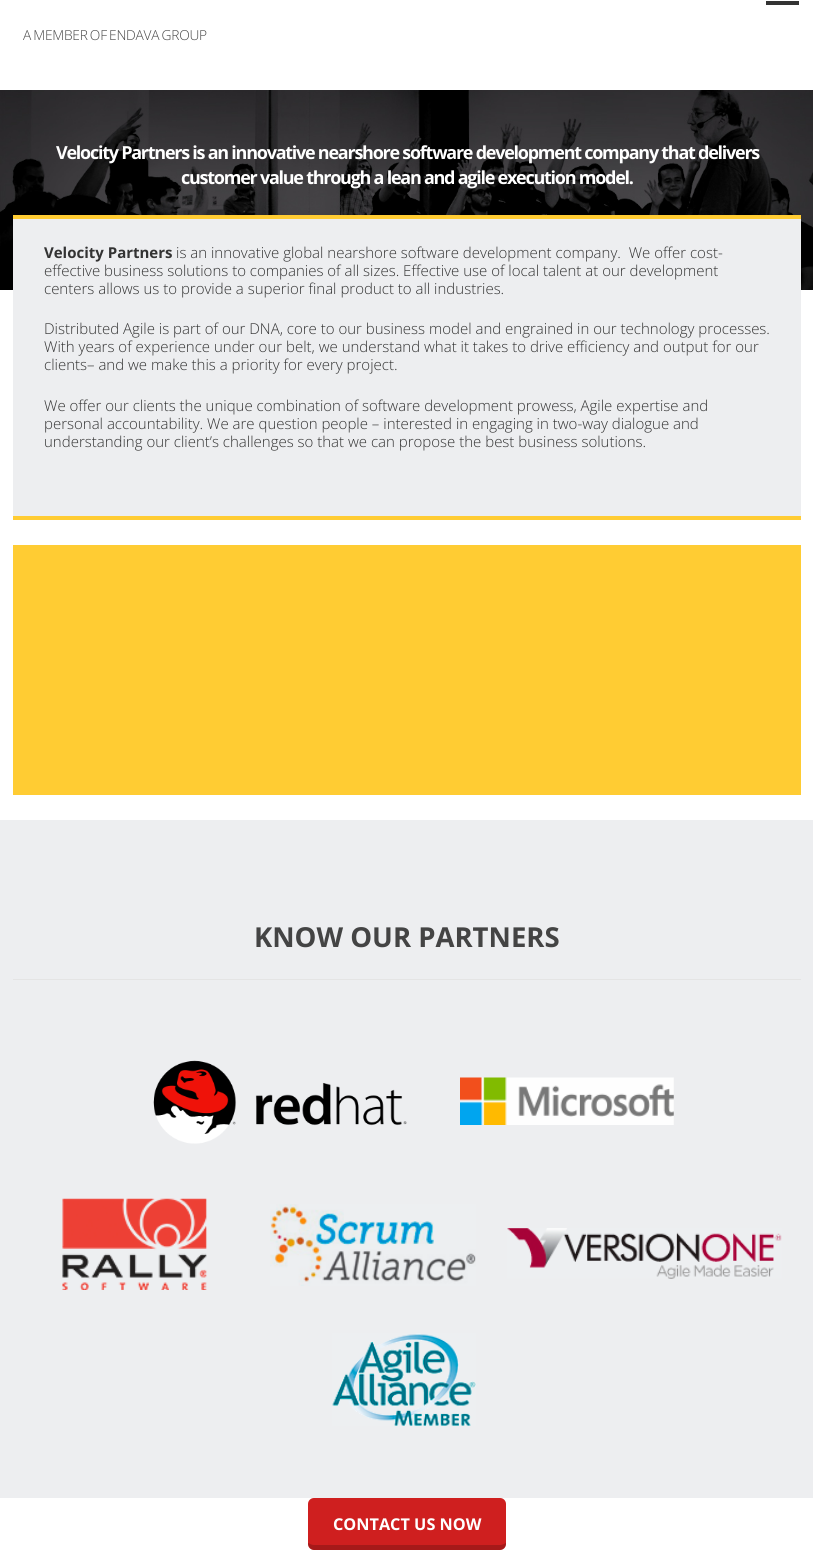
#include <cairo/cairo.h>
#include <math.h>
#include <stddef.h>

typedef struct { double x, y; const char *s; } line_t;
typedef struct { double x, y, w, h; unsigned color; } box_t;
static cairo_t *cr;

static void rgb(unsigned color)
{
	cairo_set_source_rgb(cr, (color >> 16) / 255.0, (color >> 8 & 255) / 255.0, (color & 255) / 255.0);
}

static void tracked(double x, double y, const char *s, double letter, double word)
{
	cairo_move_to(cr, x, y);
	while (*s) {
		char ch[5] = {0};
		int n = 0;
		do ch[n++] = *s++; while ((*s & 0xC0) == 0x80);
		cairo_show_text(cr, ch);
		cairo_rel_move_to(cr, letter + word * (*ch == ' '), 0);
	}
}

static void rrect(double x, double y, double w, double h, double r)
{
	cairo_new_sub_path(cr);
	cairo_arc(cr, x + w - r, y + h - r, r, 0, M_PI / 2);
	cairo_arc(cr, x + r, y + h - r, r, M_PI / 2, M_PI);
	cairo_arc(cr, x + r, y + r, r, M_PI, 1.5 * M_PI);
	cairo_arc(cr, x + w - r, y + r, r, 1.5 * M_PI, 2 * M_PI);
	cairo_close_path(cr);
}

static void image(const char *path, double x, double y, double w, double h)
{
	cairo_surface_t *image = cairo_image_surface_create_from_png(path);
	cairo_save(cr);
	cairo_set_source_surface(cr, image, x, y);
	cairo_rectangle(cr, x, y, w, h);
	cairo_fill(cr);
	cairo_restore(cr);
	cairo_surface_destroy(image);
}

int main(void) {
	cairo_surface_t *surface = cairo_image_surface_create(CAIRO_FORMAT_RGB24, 813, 1564);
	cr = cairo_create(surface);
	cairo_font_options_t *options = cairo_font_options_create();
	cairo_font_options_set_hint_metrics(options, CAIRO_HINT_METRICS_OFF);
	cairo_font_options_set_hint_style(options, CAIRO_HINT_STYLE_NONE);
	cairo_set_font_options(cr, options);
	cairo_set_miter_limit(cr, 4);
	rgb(0xffffff);
	cairo_paint(cr);
	rgb(0x333333);
	cairo_rectangle(cr, 766, 1, 33, 4);
	cairo_fill(cr);
	image("img/1.png", 0, 90, 813, 200);
	{
		static const box_t items[] = {
			{13, 219, 788, 297, 0xedeef0},
			{13, 215, 788, 4, 0xffcc33},
			{13, 516, 788, 4, 0xffcc33},
			{13, 545, 788, 250, 0xffcc33},
			{0, 820, 813, 678, 0xedeef0},
			{13, 979, 788, 1, 0xe4e4e4},
		};
		for (size_t i = 0; i < sizeof items / sizeof *items; i++) {
			rgb(items[i].color);
			cairo_rectangle(cr, items[i].x, items[i].y, items[i].w, items[i].h);
			cairo_fill(cr);
		}
	}
	image("img/2.png", 153, 1060, 254, 84);
	image("img/3.png", 460, 1077, 214, 48);
	image("img/4.png", 62, 1198, 145, 92);
	image("img/5.png", 270, 1204, 206, 82);
	image("img/6.png", 507, 1228, 275, 51);
	image("img/7.png", 332, 1333, 144, 93);
	rgb(0xcf1f1f);
	rrect(308, 1498, 198, 52, 6);
	cairo_fill(cr);
	cairo_set_source_rgba(cr, 0, 0, 0, 0.2);
	cairo_new_path(cr);
	cairo_move_to(cr, 308, 1543);
	cairo_line_to(cr, 308, 1544);
	cairo_curve_to(cr, 308, 1547, 311, 1550, 314, 1550);
	cairo_line_to(cr, 500, 1550);
	cairo_curve_to(cr, 503, 1550, 506, 1547, 506, 1544);
	cairo_line_to(cr, 506, 1543);
	cairo_curve_to(cr, 504, 1544, 502, 1545, 500, 1545);
	cairo_line_to(cr, 314, 1545);
	cairo_curve_to(cr, 312, 1545, 310, 1544, 308, 1543);
	cairo_close_path(cr);
	cairo_fill(cr);
	cairo_select_font_face(cr, "Open Sans Light", CAIRO_FONT_SLANT_NORMAL, CAIRO_FONT_WEIGHT_NORMAL);
	cairo_set_font_size(cr, 13.75);
	rgb(0x444444);
	tracked(23, 40, "A MEMBER OF ENDAVA GROUP", -0.25, -1);
	cairo_select_font_face(cr, "Open Sans", CAIRO_FONT_SLANT_NORMAL, CAIRO_FONT_WEIGHT_BOLD);
	cairo_set_font_size(cr, 18);
	rgb(0xffffff);
	tracked(56, 159, "Velocity Partners is an innovative nearshore software development company that delivers", -1.25, 0);
	tracked(181, 184, "customer value through a lean and agile execution model.", -1.25, 0);
	cairo_set_font_size(cr, 15);
	rgb(0x333333);
	cairo_move_to(cr, 44, 258);
	cairo_show_text(cr, "Velocity Partners");
	cairo_select_font_face(cr, "Open Sans Light", CAIRO_FONT_SLANT_NORMAL, CAIRO_FONT_WEIGHT_NORMAL);
	{
		static const line_t items[] = {
			{176, 258, "is an innovative global nearshore software development company.  We offer cost-"},
			{44, 276, "effective business solutions to companies of all sizes. Effective use of local talent at our development"},
			{44, 294, "centers allows us to provide a superior final product to all industries."},
			{44, 334, "Distributed Agile is part of our DNA, core to our business model and engrained in our technology processes."},
			{44, 352, "With years of experience under our belt, we understand what it takes to drive efficiency and output for our"},
			{44, 370, "clients– and we make this a priority for every project."},
			{44, 411, "We offer our clients the unique combination of software development prowess, Agile expertise and"},
			{44, 429, "personal accountability. We are question people – interested in engaging in two-way dialogue and"},
			{44, 447, "understanding our client’s challenges so that we can propose the best business solutions."},
		};
		for (size_t i = 0; i < sizeof items / sizeof *items; i++) {
			cairo_move_to(cr, items[i].x, items[i].y);
			cairo_show_text(cr, items[i].s);
		}
	}
	cairo_select_font_face(cr, "Open Sans", CAIRO_FONT_SLANT_NORMAL, CAIRO_FONT_WEIGHT_BOLD);
	cairo_set_font_size(cr, 27.5);
	rgb(0x444444);
	cairo_move_to(cr, 254, 947);
	cairo_show_text(cr, "KNOW OUR PARTNERS");
	cairo_set_font_size(cr, 16.25);
	rgb(0xffffff);
	cairo_move_to(cr, 333, 1530);
	cairo_show_text(cr, "CONTACT US NOW");
	cairo_surface_write_to_png(surface, "page.png");
	cairo_font_options_destroy(options);
	cairo_destroy(cr);
	cairo_surface_destroy(surface);
	return 0;
}
